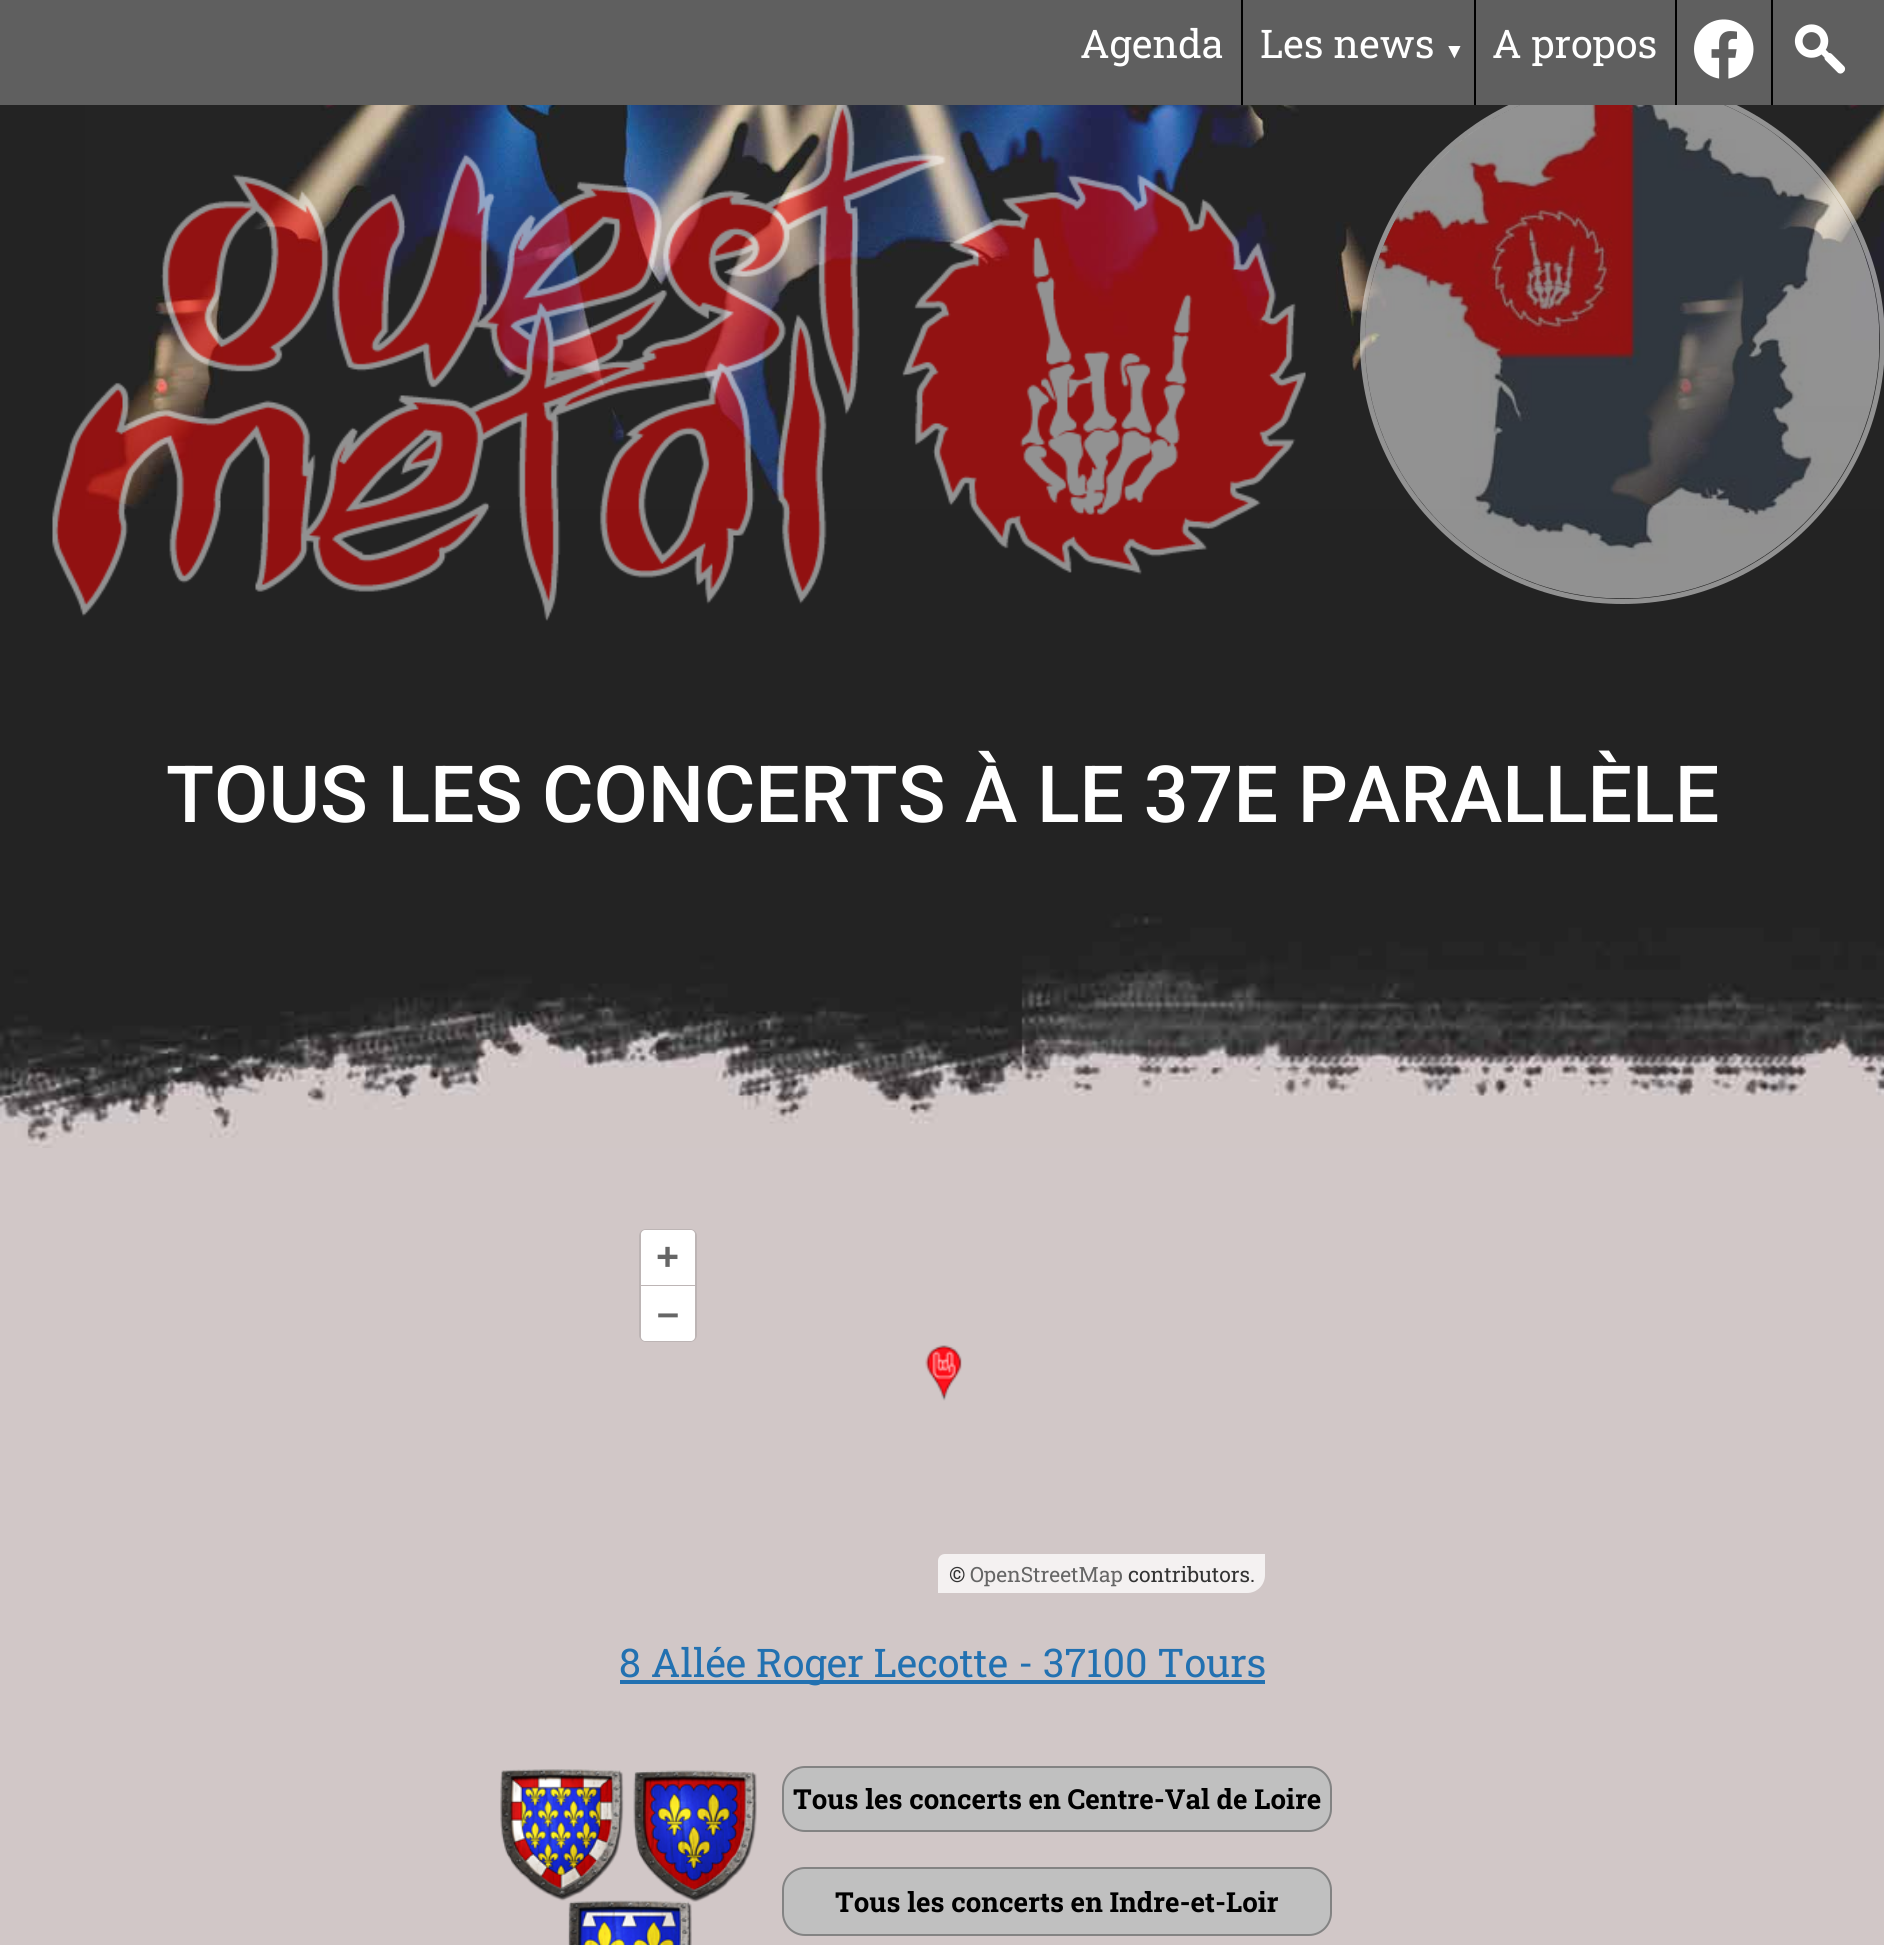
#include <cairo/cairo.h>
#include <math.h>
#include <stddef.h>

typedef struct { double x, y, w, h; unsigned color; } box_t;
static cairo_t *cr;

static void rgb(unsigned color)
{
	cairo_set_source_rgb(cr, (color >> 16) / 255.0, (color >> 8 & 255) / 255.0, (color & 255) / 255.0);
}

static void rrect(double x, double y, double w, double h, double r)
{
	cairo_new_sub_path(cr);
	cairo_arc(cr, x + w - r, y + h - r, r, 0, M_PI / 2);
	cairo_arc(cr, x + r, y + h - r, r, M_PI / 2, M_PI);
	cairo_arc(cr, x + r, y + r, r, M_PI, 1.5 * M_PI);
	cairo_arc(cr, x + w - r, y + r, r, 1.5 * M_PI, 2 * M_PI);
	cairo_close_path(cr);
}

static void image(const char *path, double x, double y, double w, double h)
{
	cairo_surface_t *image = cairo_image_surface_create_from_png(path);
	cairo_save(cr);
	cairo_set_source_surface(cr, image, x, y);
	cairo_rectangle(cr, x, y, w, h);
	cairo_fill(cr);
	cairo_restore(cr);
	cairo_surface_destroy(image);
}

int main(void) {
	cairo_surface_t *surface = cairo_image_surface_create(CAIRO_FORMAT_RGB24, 1884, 1945);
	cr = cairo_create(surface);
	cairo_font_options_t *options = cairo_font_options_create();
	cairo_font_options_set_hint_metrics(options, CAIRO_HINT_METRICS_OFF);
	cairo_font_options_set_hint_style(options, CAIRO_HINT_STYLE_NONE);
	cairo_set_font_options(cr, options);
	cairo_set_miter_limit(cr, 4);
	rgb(0x232323);
	cairo_paint(cr);
	image("img/3.png", 85, 105, 1799, 404);
	cairo_arc(cr, 1622.5, 341.5, 260, 0, 2 * M_PI);
	cairo_set_source_rgba(cr, 1, 1, 1, 0.5);
	cairo_set_line_width(cr, 5);
	cairo_stroke(cr);
	{
		static const box_t items[] = {
			{0, 0, 1884, 105, 0x5f5f5f},
			{1241, 0, 2, 105, 0x000000},
			{1474, 0, 2, 105, 0x000000},
			{1675, 0, 2, 105, 0x000000},
			{1771, 0, 2, 105, 0x000000},
		};
		for (size_t i = 0; i < sizeof items / sizeof *items; i++) {
			rgb(items[i].color);
			cairo_rectangle(cr, items[i].x, items[i].y, items[i].w, items[i].h);
			cairo_fill(cr);
		}
	}
	image("img/1.png", 1694, 19, 60, 60);
	image("img/2.png", 1794, 24, 52, 50);
	image("img/4.png", 52, 105, 1254, 516);
	image("img/5.png", 1365, 105, 515, 494);
	rgb(0xd1c7c7);
	cairo_rectangle(cr, 0, 1148, 1884, 797);
	cairo_fill(cr);
	image("img/6.png", 0, 900, 1884, 248);
	rgb(0xbdb5b5);
	rrect(639, 1229, 58, 113, 7);
	cairo_fill(cr);
	rgb(0xffffff);
	cairo_new_path(cr);
	cairo_move_to(cr, 645, 1230);
	cairo_line_to(cr, 691, 1230);
	cairo_curve_to(cr, 693, 1230, 695, 1232, 695, 1234);
	cairo_line_to(cr, 695, 1285);
	cairo_line_to(cr, 641, 1285);
	cairo_line_to(cr, 641, 1234);
	cairo_curve_to(cr, 641, 1232, 643, 1230, 645, 1230);
	cairo_close_path(cr);
	cairo_fill(cr);
	cairo_new_path(cr);
	cairo_move_to(cr, 641, 1286);
	cairo_line_to(cr, 695, 1286);
	cairo_line_to(cr, 695, 1337);
	cairo_curve_to(cr, 695, 1339, 693, 1341, 691, 1341);
	cairo_line_to(cr, 645, 1341);
	cairo_curve_to(cr, 643, 1341, 641, 1339, 641, 1337);
	cairo_close_path(cr);
	cairo_fill(cr);
	rgb(0xf4f1f1);
	cairo_new_path(cr);
	cairo_move_to(cr, 945, 1554);
	cairo_line_to(cr, 1265, 1554);
	cairo_line_to(cr, 1265, 1575);
	cairo_curve_to(cr, 1265, 1585, 1257, 1593, 1247, 1593);
	cairo_line_to(cr, 938, 1593);
	cairo_line_to(cr, 938, 1561);
	cairo_curve_to(cr, 938, 1557, 941, 1554, 945, 1554);
	cairo_close_path(cr);
	cairo_fill(cr);
	image("img/7.png", 925, 1345, 37, 56);
	rgb(0x2271b1);
	cairo_rectangle(cr, 620, 1680, 645, 4);
	cairo_fill(cr);
	image("img/8.png", 500, 1769, 257, 176);
	rgb(0xc0c0c0);
	rrect(783, 1767, 548, 64, 22);
	cairo_fill_preserve(cr);
	rgb(0x838383);
	cairo_set_line_width(cr, 2);
	cairo_stroke(cr);
	rgb(0xc0c0c0);
	rrect(783, 1868, 548, 67, 22);
	cairo_fill_preserve(cr);
	rgb(0x838383);
	cairo_stroke(cr);
	cairo_select_font_face(cr, "Roboto Slab", CAIRO_FONT_SLANT_NORMAL, CAIRO_FONT_WEIGHT_NORMAL);
	cairo_set_font_size(cr, 39.5);
	rgb(0xffffff);
	cairo_move_to(cr, 1080, 58);
	cairo_show_text(cr, "Agenda");
	cairo_move_to(cr, 1260, 58);
	cairo_show_text(cr, "Les news");
	cairo_select_font_face(cr, "Liberation Serif", CAIRO_FONT_SLANT_NORMAL, CAIRO_FONT_WEIGHT_NORMAL);
	cairo_set_font_size(cr, 21);
	cairo_move_to(cr, 1444, 58);
	cairo_show_text(cr, "▼");
	cairo_select_font_face(cr, "Roboto Slab", CAIRO_FONT_SLANT_NORMAL, CAIRO_FONT_WEIGHT_NORMAL);
	cairo_set_font_size(cr, 39.5);
	cairo_move_to(cr, 1492, 58);
	cairo_show_text(cr, "A propos");
	cairo_select_font_face(cr, "Roboto Medium", CAIRO_FONT_SLANT_NORMAL, CAIRO_FONT_WEIGHT_NORMAL);
	cairo_set_font_size(cr, 78.9);
	cairo_move_to(cr, 166, 822);
	cairo_show_text(cr, "TOUS LES CONCERTS À LE 37E PARALLÈLE");
	cairo_select_font_face(cr, "Liberation Sans", CAIRO_FONT_SLANT_NORMAL, CAIRO_FONT_WEIGHT_BOLD);
	cairo_set_font_size(cr, 39.5);
	rgb(0x666666);
	cairo_move_to(cr, 656, 1270);
	cairo_show_text(cr, "+");
	cairo_move_to(cr, 657, 1326);
	cairo_show_text(cr, "–");
	cairo_select_font_face(cr, "Roboto Slab", CAIRO_FONT_SLANT_NORMAL, CAIRO_FONT_WEIGHT_NORMAL);
	cairo_set_font_size(cr, 21);
	rgb(0x333333);
	cairo_move_to(cr, 949, 1582);
	cairo_show_text(cr, "©");
	rgb(0x666666);
	cairo_move_to(cr, 970, 1582);
	cairo_show_text(cr, "OpenStreetMap");
	rgb(0x333333);
	cairo_move_to(cr, 1128, 1582);
	cairo_show_text(cr, "contributors.");
	cairo_set_font_size(cr, 39.5);
	rgb(0x2271b1);
	cairo_move_to(cr, 619, 1677);
	cairo_show_text(cr, "8 Allée Roger Lecotte - 37100 Tours");
	cairo_select_font_face(cr, "Roboto Slab", CAIRO_FONT_SLANT_NORMAL, CAIRO_FONT_WEIGHT_BOLD);
	cairo_set_font_size(cr, 27.6);
	rgb(0x000000);
	cairo_move_to(cr, 793, 1809);
	cairo_show_text(cr, "Tous les concerts en Centre-Val de Loire");
	cairo_move_to(cr, 835, 1912);
	cairo_show_text(cr, "Tous les concerts en Indre-et-Loir");
	cairo_surface_write_to_png(surface, "page.png");
	cairo_font_options_destroy(options);
	cairo_destroy(cr);
	cairo_surface_destroy(surface);
	return 0;
}
